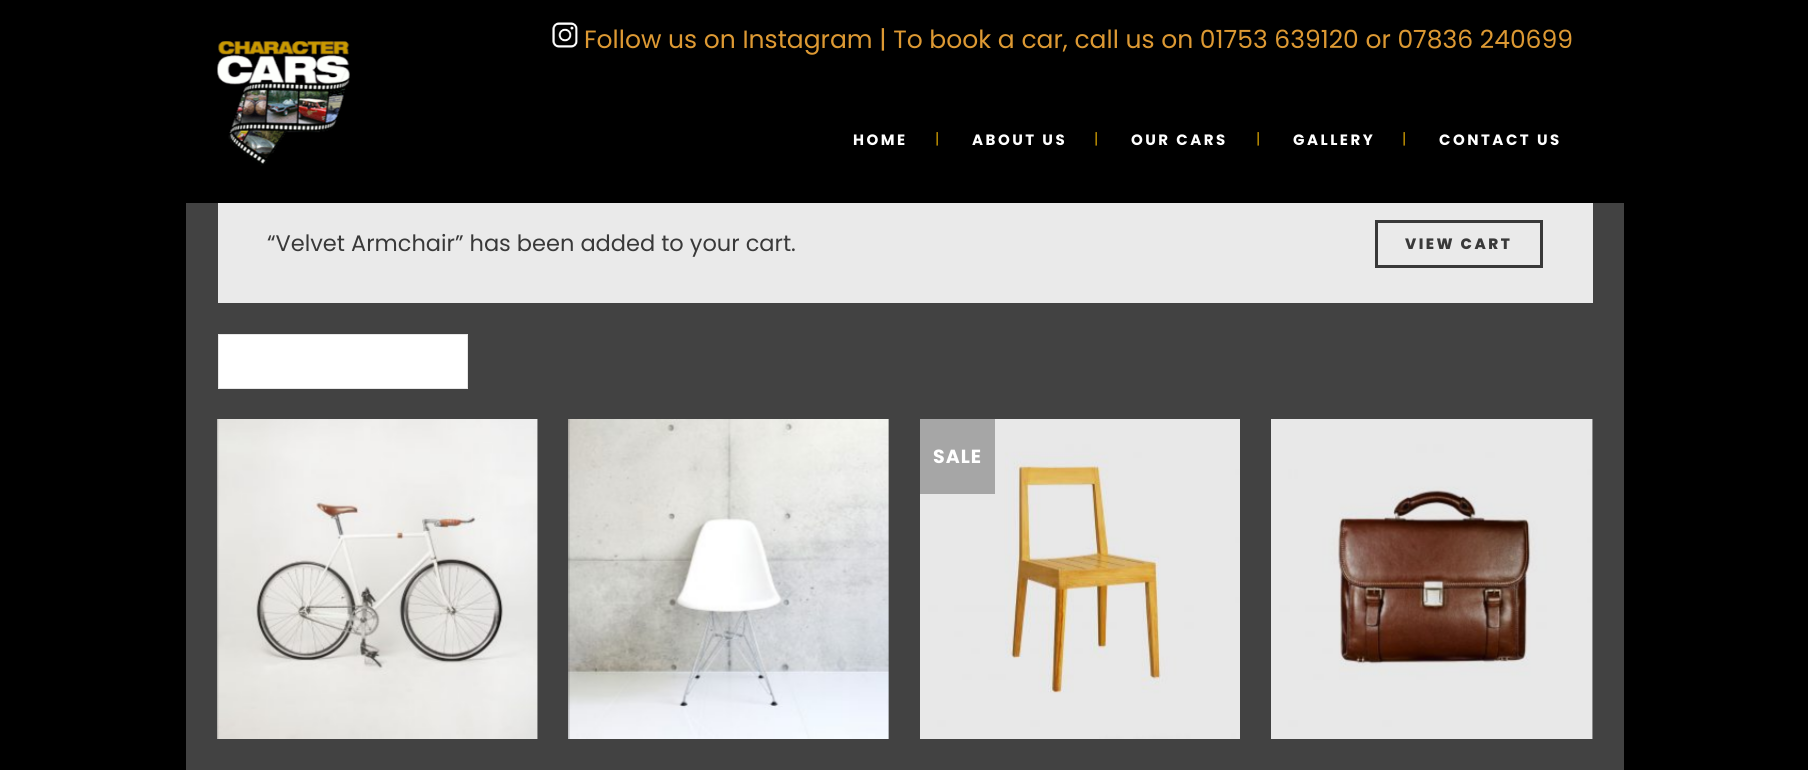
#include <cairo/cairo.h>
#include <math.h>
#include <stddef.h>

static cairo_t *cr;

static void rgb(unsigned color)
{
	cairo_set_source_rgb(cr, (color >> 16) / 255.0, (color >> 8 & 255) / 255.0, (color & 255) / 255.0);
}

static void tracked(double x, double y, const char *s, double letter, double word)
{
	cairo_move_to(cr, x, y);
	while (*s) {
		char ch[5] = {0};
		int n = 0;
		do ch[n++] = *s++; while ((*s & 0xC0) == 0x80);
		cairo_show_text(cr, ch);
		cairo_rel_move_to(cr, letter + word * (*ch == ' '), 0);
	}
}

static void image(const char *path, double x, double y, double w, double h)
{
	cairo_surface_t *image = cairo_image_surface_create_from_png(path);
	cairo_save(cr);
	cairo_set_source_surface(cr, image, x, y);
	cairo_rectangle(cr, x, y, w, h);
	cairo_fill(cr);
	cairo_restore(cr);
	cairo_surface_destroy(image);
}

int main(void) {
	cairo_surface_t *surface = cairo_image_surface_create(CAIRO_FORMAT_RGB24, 1808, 770);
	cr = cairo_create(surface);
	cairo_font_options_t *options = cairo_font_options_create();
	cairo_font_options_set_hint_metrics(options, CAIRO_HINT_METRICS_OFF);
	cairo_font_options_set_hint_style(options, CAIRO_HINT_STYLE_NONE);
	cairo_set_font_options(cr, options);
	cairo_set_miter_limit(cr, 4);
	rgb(0x000000);
	cairo_paint(cr);
	image("img/1.png", 552, 22, 26, 26);
	image("img/2.png", 217, 41, 133, 125);
	rgb(0x424242);
	cairo_rectangle(cr, 186, 203, 1438, 567);
	cairo_fill(cr);
	rgb(0xeaeaea);
	cairo_rectangle(cr, 218, 203, 1375, 100);
	cairo_fill(cr);
	cairo_rectangle(cr, 1376.5, 221.5, 165, 45);
	rgb(0x393939);
	cairo_set_line_width(cr, 3);
	cairo_stroke(cr);
	rgb(0xffffff);
	cairo_rectangle(cr, 218.5, 334.5, 249, 54);
	cairo_fill_preserve(cr);
	rgb(0xe6e6e6);
	cairo_set_line_width(cr, 1);
	cairo_stroke(cr);
	image("img/3.png", 217, 419, 321, 320);
	image("img/4.png", 568, 419, 321, 320);
	image("img/5.png", 920, 419, 320, 320);
	rgb(0xa6a6a6);
	cairo_rectangle(cr, 920, 419, 75, 75);
	cairo_fill(cr);
	image("img/6.png", 1271, 419, 322, 320);
	cairo_select_font_face(cr, "Poppins", CAIRO_FONT_SLANT_NORMAL, CAIRO_FONT_WEIGHT_NORMAL);
	cairo_set_font_size(cr, 25);
	rgb(0xdd9933);
	cairo_move_to(cr, 584, 48);
	cairo_show_text(cr, "Follow us on Instagram | To book a car, call us on 01753 639120 or 07836 240699");
	cairo_select_font_face(cr, "Poppins", CAIRO_FONT_SLANT_NORMAL, CAIRO_FONT_WEIGHT_BOLD);
	cairo_set_font_size(cr, 15);
	rgb(0xffffff);
	tracked(853, 145, "HOME", 2.5, 0);
	cairo_select_font_face(cr, "Poppins", CAIRO_FONT_SLANT_NORMAL, CAIRO_FONT_WEIGHT_NORMAL);
	rgb(0xcb9902);
	cairo_move_to(cr, 935, 144);
	cairo_show_text(cr, "|");
	cairo_select_font_face(cr, "Poppins", CAIRO_FONT_SLANT_NORMAL, CAIRO_FONT_WEIGHT_BOLD);
	rgb(0xffffff);
	tracked(972, 145, "ABOUT US", 2.5, 0);
	cairo_select_font_face(cr, "Poppins", CAIRO_FONT_SLANT_NORMAL, CAIRO_FONT_WEIGHT_NORMAL);
	rgb(0xcb9902);
	cairo_move_to(cr, 1094, 144);
	cairo_show_text(cr, "|");
	cairo_select_font_face(cr, "Poppins", CAIRO_FONT_SLANT_NORMAL, CAIRO_FONT_WEIGHT_BOLD);
	rgb(0xffffff);
	tracked(1131, 145, "OUR CARS", 2.5, 0);
	cairo_select_font_face(cr, "Poppins", CAIRO_FONT_SLANT_NORMAL, CAIRO_FONT_WEIGHT_NORMAL);
	rgb(0xcb9902);
	cairo_move_to(cr, 1256, 144);
	cairo_show_text(cr, "|");
	cairo_select_font_face(cr, "Poppins", CAIRO_FONT_SLANT_NORMAL, CAIRO_FONT_WEIGHT_BOLD);
	rgb(0xffffff);
	tracked(1293, 145, "GALLERY", 2.5, 0);
	cairo_select_font_face(cr, "Poppins", CAIRO_FONT_SLANT_NORMAL, CAIRO_FONT_WEIGHT_NORMAL);
	rgb(0xcb9902);
	cairo_move_to(cr, 1402, 144);
	cairo_show_text(cr, "|");
	cairo_select_font_face(cr, "Poppins", CAIRO_FONT_SLANT_NORMAL, CAIRO_FONT_WEIGHT_BOLD);
	rgb(0xffffff);
	tracked(1439, 145, "CONTACT US", 2.5, 0);
	cairo_select_font_face(cr, "Poppins", CAIRO_FONT_SLANT_NORMAL, CAIRO_FONT_WEIGHT_NORMAL);
	cairo_set_font_size(cr, 22.5);
	rgb(0x393939);
	cairo_move_to(cr, 267, 251);
	cairo_show_text(cr, "“Velvet Armchair” has been added to your cart.");
	cairo_select_font_face(cr, "Poppins ExtraBold", CAIRO_FONT_SLANT_NORMAL, CAIRO_FONT_WEIGHT_NORMAL);
	cairo_set_font_size(cr, 15);
	tracked(1405, 249, "VIEW CART", 2.5, 0);
	cairo_select_font_face(cr, "Poppins", CAIRO_FONT_SLANT_NORMAL, CAIRO_FONT_WEIGHT_BOLD);
	cairo_set_font_size(cr, 19);
	rgb(0xffffff);
	tracked(933, 463, "SALE", 1, 0);
	cairo_surface_write_to_png(surface, "page.png");
	cairo_font_options_destroy(options);
	cairo_destroy(cr);
	cairo_surface_destroy(surface);
	return 0;
}
